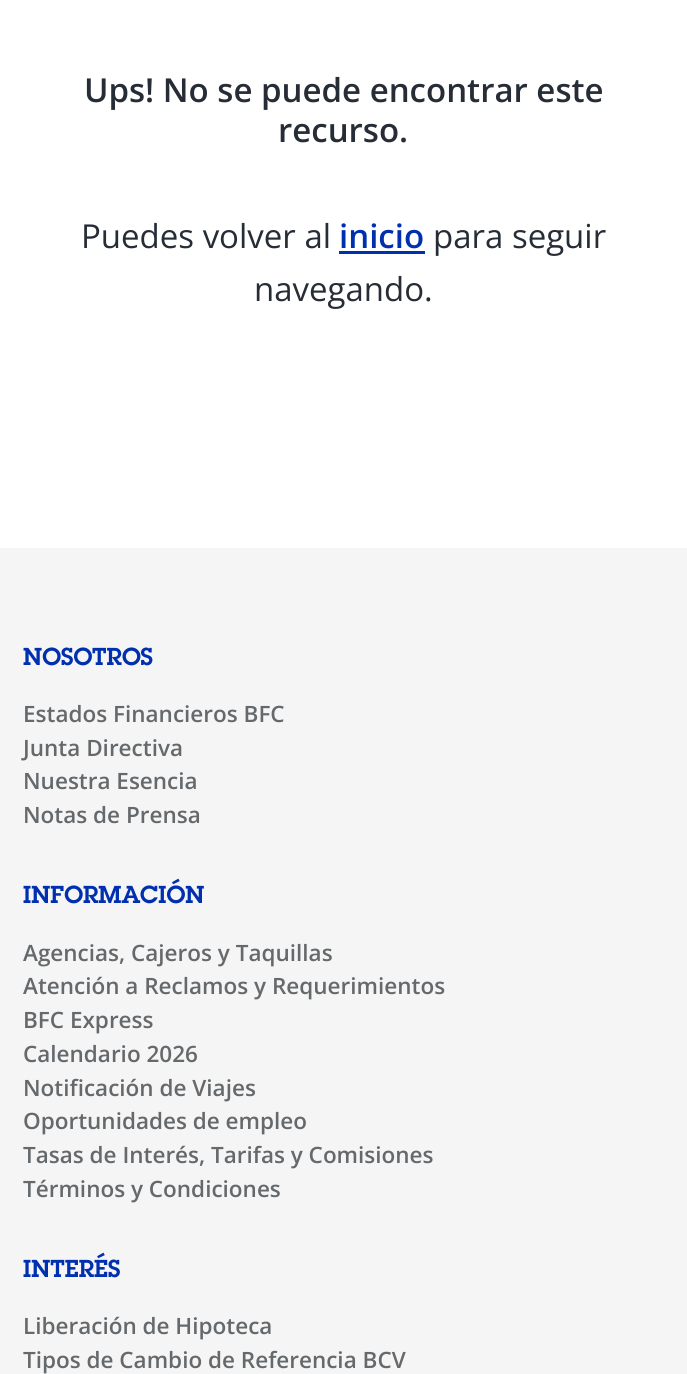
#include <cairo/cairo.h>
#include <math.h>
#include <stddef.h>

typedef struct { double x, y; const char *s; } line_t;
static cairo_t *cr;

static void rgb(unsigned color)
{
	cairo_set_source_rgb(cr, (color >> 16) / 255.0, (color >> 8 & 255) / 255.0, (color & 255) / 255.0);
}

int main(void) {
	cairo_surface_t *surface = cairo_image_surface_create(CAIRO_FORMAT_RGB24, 687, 1374);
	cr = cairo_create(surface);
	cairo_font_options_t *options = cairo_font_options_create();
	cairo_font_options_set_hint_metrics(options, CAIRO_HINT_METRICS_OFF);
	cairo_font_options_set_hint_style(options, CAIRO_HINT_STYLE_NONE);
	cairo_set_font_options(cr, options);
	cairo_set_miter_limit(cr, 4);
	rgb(0xffffff);
	cairo_paint(cr);
	rgb(0x0030b0);
	cairo_rectangle(cr, 339, 251, 86, 3);
	cairo_fill(cr);
	rgb(0xf5f5f5);
	cairo_rectangle(cr, 0, 548, 687, 826);
	cairo_fill(cr);
	cairo_select_font_face(cr, "Open Sans SemiBold", CAIRO_FONT_SLANT_NORMAL, CAIRO_FONT_WEIGHT_NORMAL);
	cairo_set_font_size(cr, 33);
	rgb(0x262d36);
	cairo_move_to(cr, 84, 102);
	cairo_show_text(cr, "Ups! No se puede encontrar este");
	cairo_move_to(cr, 278, 142);
	cairo_show_text(cr, "recurso.");
	cairo_select_font_face(cr, "Open Sans", CAIRO_FONT_SLANT_NORMAL, CAIRO_FONT_WEIGHT_NORMAL);
	cairo_move_to(cr, 81, 248);
	cairo_show_text(cr, "Puedes volver al");
	cairo_select_font_face(cr, "Open Sans SemiBold", CAIRO_FONT_SLANT_NORMAL, CAIRO_FONT_WEIGHT_NORMAL);
	rgb(0x0030b0);
	cairo_move_to(cr, 339, 248);
	cairo_show_text(cr, "inicio");
	cairo_select_font_face(cr, "Open Sans", CAIRO_FONT_SLANT_NORMAL, CAIRO_FONT_WEIGHT_NORMAL);
	rgb(0x262d36);
	cairo_move_to(cr, 433, 248);
	cairo_show_text(cr, "para seguir");
	cairo_move_to(cr, 254, 301);
	cairo_show_text(cr, "navegando.");
	cairo_select_font_face(cr, "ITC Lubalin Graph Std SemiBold", CAIRO_FONT_SLANT_NORMAL, CAIRO_FONT_WEIGHT_NORMAL);
	cairo_set_font_size(cr, 24);
	rgb(0x0030b0);
	cairo_move_to(cr, 23, 665);
	cairo_show_text(cr, "NOSOTROS");
	cairo_select_font_face(cr, "Open Sans SemiBold", CAIRO_FONT_SLANT_NORMAL, CAIRO_FONT_WEIGHT_NORMAL);
	cairo_set_font_size(cr, 22.5);
	rgb(0x65696c);
	{
		static const line_t items[] = {
			{23, 722, "Estados Financieros BFC"},
			{23, 756, "Junta Directiva"},
			{23, 789, "Nuestra Esencia"},
			{23, 823, "Notas de Prensa"},
		};
		for (size_t i = 0; i < sizeof items / sizeof *items; i++) {
			cairo_move_to(cr, items[i].x, items[i].y);
			cairo_show_text(cr, items[i].s);
		}
	}
	cairo_select_font_face(cr, "ITC Lubalin Graph Std SemiBold", CAIRO_FONT_SLANT_NORMAL, CAIRO_FONT_WEIGHT_NORMAL);
	cairo_set_font_size(cr, 24);
	rgb(0x0030b0);
	cairo_move_to(cr, 23, 903);
	cairo_show_text(cr, "INFORMACIÓN");
	cairo_select_font_face(cr, "Open Sans SemiBold", CAIRO_FONT_SLANT_NORMAL, CAIRO_FONT_WEIGHT_NORMAL);
	cairo_set_font_size(cr, 22.5);
	rgb(0x65696c);
	{
		static const line_t items[] = {
			{23, 961, "Agencias, Cajeros y Taquillas"},
			{23, 994, "Atención a Reclamos y Requerimientos"},
			{23, 1028, "BFC Express"},
			{23, 1062, "Calendario 2026"},
			{23, 1096, "Notificación de Viajes"},
			{23, 1129, "Oportunidades de empleo"},
			{23, 1163, "Tasas de Interés, Tarifas y Comisiones"},
			{23, 1197, "Términos y Condiciones"},
		};
		for (size_t i = 0; i < sizeof items / sizeof *items; i++) {
			cairo_move_to(cr, items[i].x, items[i].y);
			cairo_show_text(cr, items[i].s);
		}
	}
	cairo_select_font_face(cr, "ITC Lubalin Graph Std SemiBold", CAIRO_FONT_SLANT_NORMAL, CAIRO_FONT_WEIGHT_NORMAL);
	cairo_set_font_size(cr, 24);
	rgb(0x0030b0);
	cairo_move_to(cr, 23, 1277);
	cairo_show_text(cr, "INTERÉS");
	cairo_select_font_face(cr, "Open Sans SemiBold", CAIRO_FONT_SLANT_NORMAL, CAIRO_FONT_WEIGHT_NORMAL);
	cairo_set_font_size(cr, 22.5);
	rgb(0x65696c);
	cairo_move_to(cr, 23, 1334);
	cairo_show_text(cr, "Liberación de Hipoteca");
	cairo_move_to(cr, 23, 1368);
	cairo_show_text(cr, "Tipos de Cambio de Referencia BCV");
	cairo_surface_write_to_png(surface, "page.png");
	cairo_font_options_destroy(options);
	cairo_destroy(cr);
	cairo_surface_destroy(surface);
	return 0;
}
